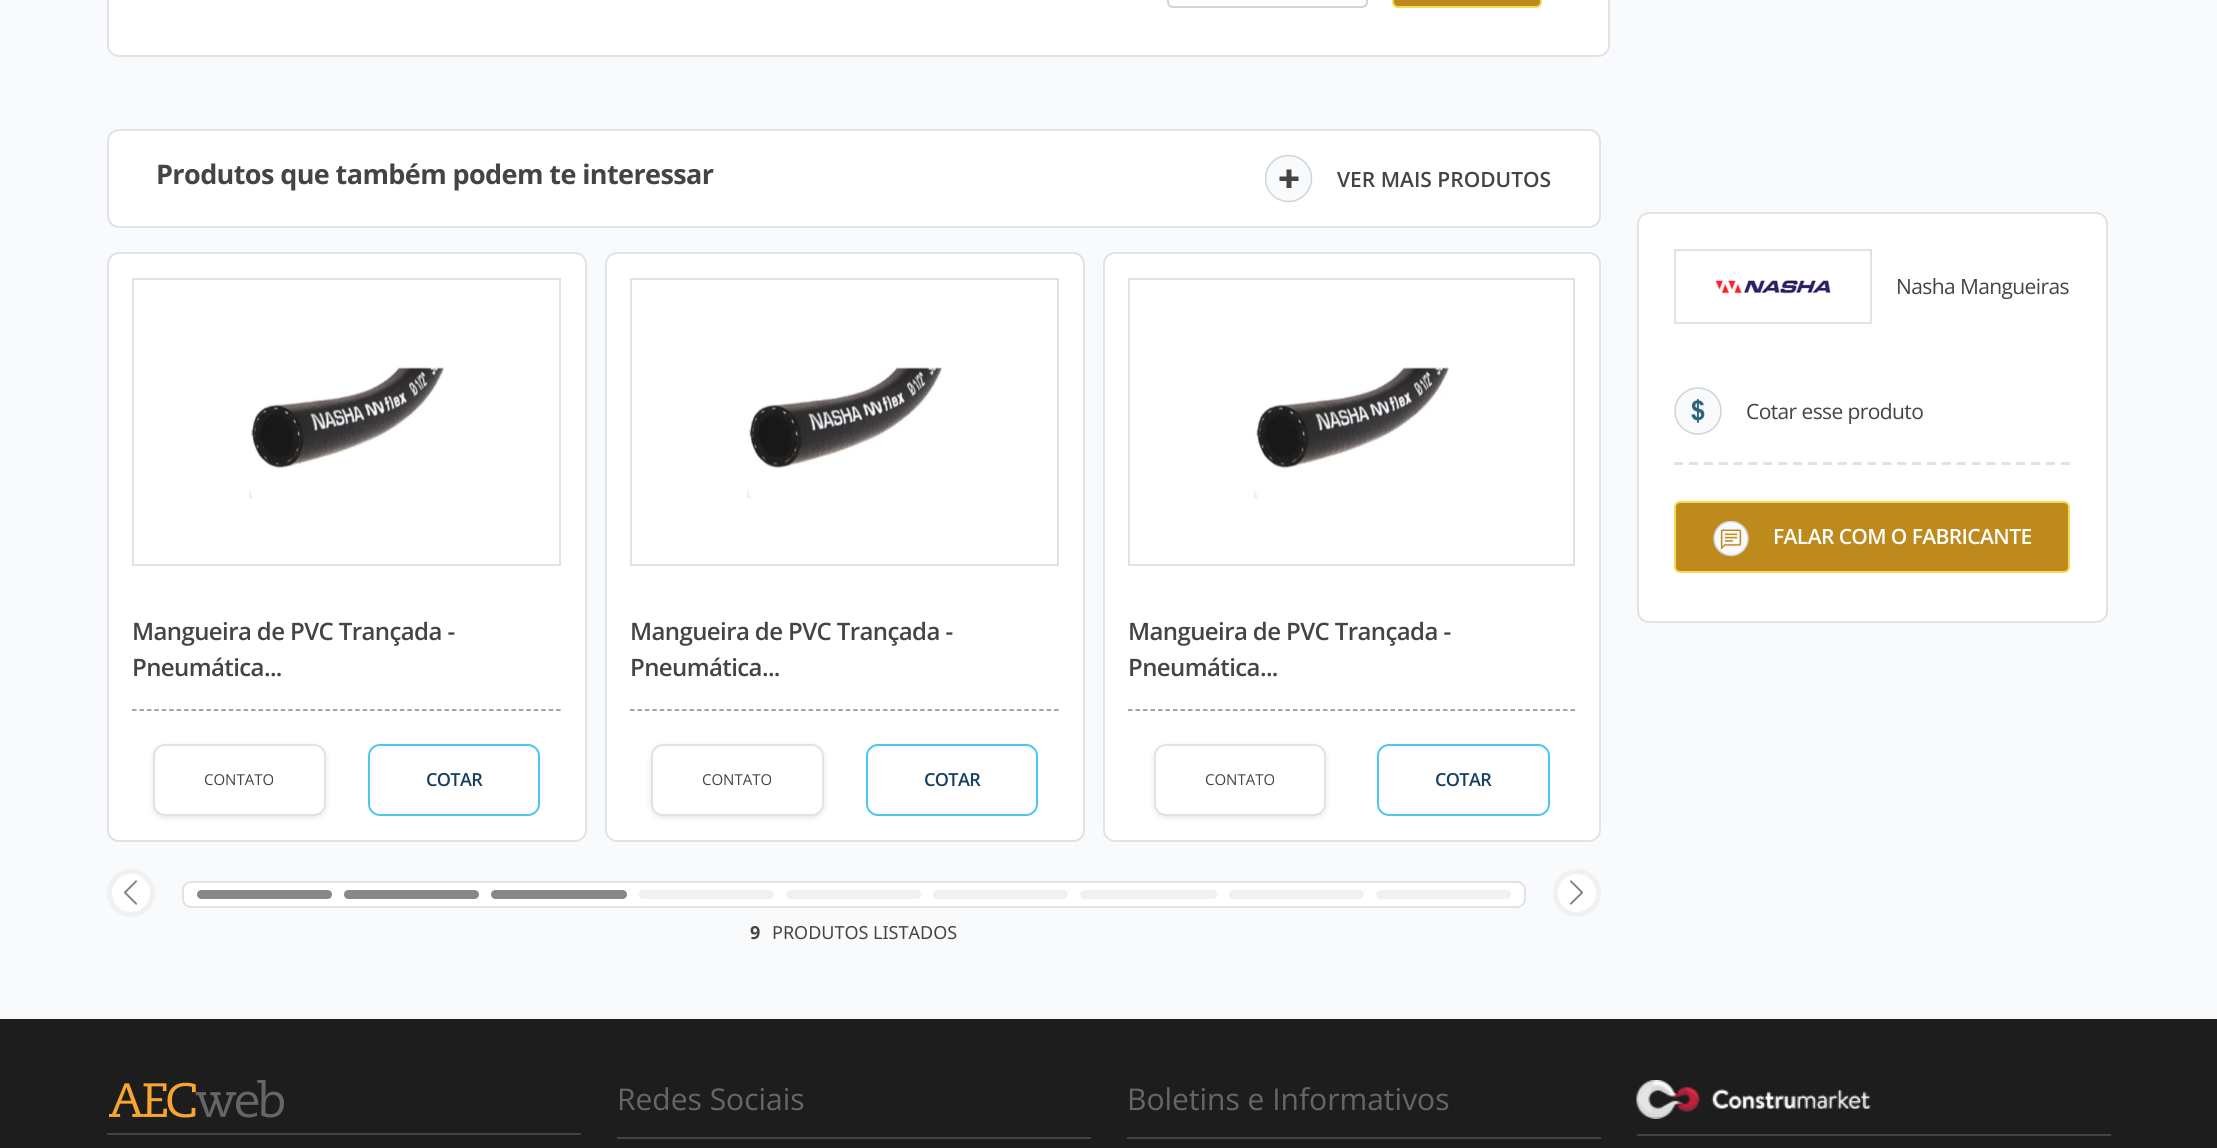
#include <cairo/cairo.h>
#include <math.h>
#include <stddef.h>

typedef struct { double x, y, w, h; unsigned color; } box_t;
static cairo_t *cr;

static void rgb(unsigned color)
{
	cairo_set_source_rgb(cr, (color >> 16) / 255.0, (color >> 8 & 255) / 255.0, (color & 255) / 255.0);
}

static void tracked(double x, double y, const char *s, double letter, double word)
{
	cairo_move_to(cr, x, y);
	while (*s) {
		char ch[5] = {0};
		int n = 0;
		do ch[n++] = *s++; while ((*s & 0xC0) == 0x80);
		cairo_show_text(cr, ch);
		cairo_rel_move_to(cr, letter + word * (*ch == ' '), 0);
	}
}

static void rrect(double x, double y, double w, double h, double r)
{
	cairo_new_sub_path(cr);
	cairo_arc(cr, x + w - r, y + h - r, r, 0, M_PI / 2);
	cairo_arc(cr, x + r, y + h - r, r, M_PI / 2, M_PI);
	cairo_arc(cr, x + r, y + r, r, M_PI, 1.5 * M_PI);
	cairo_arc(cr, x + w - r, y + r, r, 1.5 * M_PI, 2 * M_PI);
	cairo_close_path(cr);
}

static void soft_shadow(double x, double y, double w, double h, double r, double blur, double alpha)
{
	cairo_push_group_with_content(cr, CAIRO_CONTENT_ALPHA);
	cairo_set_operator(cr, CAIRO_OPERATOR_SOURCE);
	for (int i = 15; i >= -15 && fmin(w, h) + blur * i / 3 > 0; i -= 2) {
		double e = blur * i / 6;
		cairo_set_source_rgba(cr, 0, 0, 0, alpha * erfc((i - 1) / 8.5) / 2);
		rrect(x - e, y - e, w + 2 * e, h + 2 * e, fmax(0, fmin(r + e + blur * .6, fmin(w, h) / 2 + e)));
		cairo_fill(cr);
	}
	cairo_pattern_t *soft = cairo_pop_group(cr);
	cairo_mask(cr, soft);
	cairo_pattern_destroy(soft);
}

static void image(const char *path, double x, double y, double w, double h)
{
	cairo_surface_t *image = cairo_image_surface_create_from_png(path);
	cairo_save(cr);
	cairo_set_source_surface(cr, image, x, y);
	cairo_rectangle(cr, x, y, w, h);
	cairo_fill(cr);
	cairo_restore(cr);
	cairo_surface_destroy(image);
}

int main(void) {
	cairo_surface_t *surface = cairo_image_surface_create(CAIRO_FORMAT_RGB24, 2217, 1148);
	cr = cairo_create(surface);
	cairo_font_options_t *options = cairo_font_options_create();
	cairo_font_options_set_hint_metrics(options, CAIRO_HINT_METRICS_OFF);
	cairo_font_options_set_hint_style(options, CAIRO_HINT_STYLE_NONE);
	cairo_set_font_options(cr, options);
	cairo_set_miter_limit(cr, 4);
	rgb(0xf9fafb);
	cairo_paint(cr);
	rgb(0xffffff);
	rrect(108, -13, 1501, 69, 11);
	cairo_fill_preserve(cr);
	rgb(0xdfe3e7);
	cairo_stroke(cr);
	rrect(1168, -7, 199, 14, 5);
	rgb(0xcdd4da);
	cairo_stroke(cr);
	rgb(0xbe8a1e);
	rrect(1393, -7, 148, 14, 5);
	cairo_fill_preserve(cr);
	rgb(0xf6db53);
	cairo_stroke(cr);
	rgb(0xffffff);
	rrect(108, 130, 1492, 97, 11);
	cairo_fill_preserve(cr);
	rgb(0xdfe3e7);
	cairo_stroke(cr);
	rgb(0xf9fafb);
	cairo_arc(cr, 1288.5, 178.5, 23, 0, 2 * M_PI);
	cairo_fill(cr);
	cairo_save(cr);
	cairo_rectangle(cr, 1265, 155, 48, 48);
	cairo_clip(cr);
	cairo_arc(cr, 1288.5, 178.5, 23, 0, 2 * M_PI);
	rgb(0xcdd4da);
	cairo_set_line_width(cr, 1.5);
	cairo_stroke(cr);
	cairo_restore(cr);
	rgb(0x444444);
	cairo_new_path(cr);
	cairo_move_to(cr, 1286.5, 188);
	cairo_line_to(cr, 1286.5, 181);
	cairo_line_to(cr, 1279.5, 181);
	cairo_line_to(cr, 1279.5, 176.5);
	cairo_line_to(cr, 1286.5, 176.5);
	cairo_line_to(cr, 1286.5, 169.5);
	cairo_line_to(cr, 1291.5, 169.5);
	cairo_line_to(cr, 1291.5, 176.5);
	cairo_line_to(cr, 1298.5, 176.5);
	cairo_line_to(cr, 1298.5, 181);
	cairo_line_to(cr, 1291.5, 181);
	cairo_line_to(cr, 1291.5, 188);
	cairo_close_path(cr);
	cairo_fill(cr);
	rgb(0xffffff);
	rrect(108, 253, 478, 588, 11);
	cairo_fill_preserve(cr);
	rgb(0xdfe3e7);
	cairo_stroke(cr);
	cairo_rectangle(cr, 133, 279, 427, 286);
	cairo_stroke(cr);
	image("img/1.png", 249, 367, 195, 132);
	cairo_new_path(cr);
	cairo_move_to(cr, 132, 710);
	cairo_line_to(cr, 561, 710);
	rgb(0x888888);
	cairo_set_line_width(cr, 1.5);
	cairo_set_dash(cr, (double[]){4.5, 2.94}, 2, 0);
	cairo_stroke(cr);
	rgb(0x000000);
	soft_shadow(153, 746, 173, 72, 12, 3, 0.1);
	rgb(0xffffff);
	rrect(154, 745, 171, 70, 11);
	cairo_fill_preserve(cr);
	rgb(0xdfe3e7);
	cairo_set_line_width(cr, 2);
	cairo_set_dash(cr, NULL, 0, 0);
	cairo_stroke(cr);
	rrect(369, 745, 170, 70, 11);
	rgb(0x4ac7ee);
	cairo_stroke(cr);
	rgb(0xffffff);
	rrect(606, 253, 478, 588, 11);
	cairo_fill_preserve(cr);
	rgb(0xdfe3e7);
	cairo_stroke(cr);
	cairo_rectangle(cr, 631, 279, 427, 286);
	cairo_stroke(cr);
	image("img/1.png", 747, 367, 195, 132);
	cairo_new_path(cr);
	cairo_move_to(cr, 630, 710);
	cairo_line_to(cr, 1059, 710);
	rgb(0x888888);
	cairo_set_line_width(cr, 1.5);
	cairo_set_dash(cr, (double[]){4.5, 2.94}, 2, 0);
	cairo_stroke(cr);
	rgb(0x000000);
	soft_shadow(651, 746, 173, 72, 12, 3, 0.1);
	rgb(0xffffff);
	rrect(652, 745, 171, 70, 11);
	cairo_fill_preserve(cr);
	rgb(0xdfe3e7);
	cairo_set_line_width(cr, 2);
	cairo_set_dash(cr, NULL, 0, 0);
	cairo_stroke(cr);
	rrect(867, 745, 170, 70, 11);
	rgb(0x4ac7ee);
	cairo_stroke(cr);
	rgb(0xffffff);
	rrect(1104, 253, 496, 588, 11);
	cairo_fill_preserve(cr);
	rgb(0xdfe3e7);
	cairo_stroke(cr);
	cairo_rectangle(cr, 1129, 279, 445, 286);
	cairo_stroke(cr);
	image("img/1.png", 1254, 367, 195, 132);
	cairo_new_path(cr);
	cairo_move_to(cr, 1128, 710);
	cairo_line_to(cr, 1575, 710);
	rgb(0x888888);
	cairo_set_line_width(cr, 1.5);
	cairo_set_dash(cr, (double[]){4.5, 3}, 2, 0);
	cairo_stroke(cr);
	rgb(0x000000);
	soft_shadow(1154, 746, 172, 72, 12, 3, 0.1);
	rgb(0xffffff);
	rrect(1155, 745, 170, 70, 11);
	cairo_fill_preserve(cr);
	rgb(0xdfe3e7);
	cairo_set_line_width(cr, 2);
	cairo_set_dash(cr, NULL, 0, 0);
	cairo_stroke(cr);
	rrect(1378, 745, 171, 70, 11);
	rgb(0x4ac7ee);
	cairo_stroke(cr);
	rgb(0xffffff);
	cairo_arc(cr, 131, 893, 21.5, 0, 2 * M_PI);
	cairo_fill_preserve(cr);
	rgb(0xeff1f3);
	cairo_set_line_width(cr, 5);
	cairo_stroke(cr);
	image("img/2.png", 124, 880, 13, 25);
	rgb(0xffffff);
	rrect(183, 882, 1342, 25, 8);
	cairo_fill_preserve(cr);
	rgb(0xdfe3e7);
	cairo_set_line_width(cr, 2);
	cairo_stroke(cr);
	rgb(0x888888);
	rrect(197, 890, 135, 9, 4.5);
	cairo_fill(cr);
	rrect(344, 890, 135, 9, 4.5);
	cairo_fill(cr);
	rrect(491, 890, 136, 9, 4.5);
	cairo_fill(cr);
	rgb(0xeff1f3);
	rrect(639, 890, 135, 9, 4.5);
	cairo_fill(cr);
	rrect(786, 890, 135, 9, 4.5);
	cairo_fill(cr);
	rrect(933, 890, 135, 9, 4.5);
	cairo_fill(cr);
	rrect(1080, 890, 137, 9, 4.5);
	cairo_fill(cr);
	rrect(1229, 890, 135, 9, 4.5);
	cairo_fill(cr);
	rrect(1376, 890, 135, 9, 4.5);
	cairo_fill(cr);
	rgb(0xffffff);
	cairo_arc(cr, 1577, 893, 21.5, 0, 2 * M_PI);
	cairo_fill_preserve(cr);
	rgb(0xeff1f3);
	cairo_set_line_width(cr, 5);
	cairo_stroke(cr);
	image("img/3.png", 1570, 880, 13, 25);
	rgb(0xffffff);
	rrect(1638, 213, 469, 409, 11);
	cairo_fill_preserve(cr);
	rgb(0xdfe3e7);
	cairo_set_line_width(cr, 2);
	cairo_stroke(cr);
	cairo_rectangle(cr, 1675, 250, 196, 73);
	cairo_stroke(cr);
	image("img/4.png", 1715, 280, 116, 14);
	cairo_new_path(cr);
	cairo_move_to(cr, 1674, 463.5);
	cairo_line_to(cr, 2070, 463.5);
	cairo_set_line_width(cr, 3);
	cairo_set_dash(cr, (double[]){9, 5.88}, 2, 0);
	cairo_stroke(cr);
	image("img/5.png", 1674, 387, 48, 48);
	rgb(0xbe8a1e);
	rrect(1675, 502, 394, 70, 5);
	cairo_fill_preserve(cr);
	rgb(0xf6db53);
	cairo_set_line_width(cr, 2);
	cairo_set_dash(cr, NULL, 0, 0);
	cairo_stroke(cr);
	image("img/6.png", 1713, 521, 36, 36);
	rgb(0x1d1d1d);
	cairo_rectangle(cr, 0, 1019, 2217, 129);
	cairo_fill(cr);
	rgb(0x424242);
	cairo_rectangle(cr, 107, 1133, 474, 2);
	cairo_fill(cr);
	image("img/7.png", 109, 1080, 175, 38);
	{
		static const box_t items[] = {
			{617, 1137, 474, 2, 0x424242},
			{1127, 1137, 474, 2, 0x424242},
			{1637, 1134, 474, 2, 0x424242},
		};
		for (size_t i = 0; i < sizeof items / sizeof *items; i++) {
			rgb(items[i].color);
			cairo_rectangle(cr, items[i].x, items[i].y, items[i].w, items[i].h);
			cairo_fill(cr);
		}
	}
	image("img/8.png", 1636, 1080, 235, 39);
	cairo_select_font_face(cr, "Open Sans", CAIRO_FONT_SLANT_NORMAL, CAIRO_FONT_WEIGHT_BOLD);
	cairo_set_font_size(cr, 27);
	rgb(0x444444);
	tracked(156, 184, "Produtos que também podem te interessar", -0.6, 0);
	cairo_select_font_face(cr, "Open Sans SemiBold", CAIRO_FONT_SLANT_NORMAL, CAIRO_FONT_WEIGHT_NORMAL);
	cairo_set_font_size(cr, 21);
	cairo_move_to(cr, 1337, 187);
	cairo_show_text(cr, "VER MAIS PRODUTOS");
	cairo_set_font_size(cr, 24);
	tracked(132, 640, "Mangueira de PVC Trançada -", -0.6, 0);
	tracked(132, 676, "Pneumática...", -0.6, 0);
	cairo_select_font_face(cr, "Open Sans", CAIRO_FONT_SLANT_NORMAL, CAIRO_FONT_WEIGHT_NORMAL);
	cairo_set_font_size(cr, 15);
	cairo_move_to(cr, 204, 785);
	cairo_show_text(cr, "CONTATO");
	cairo_select_font_face(cr, "Open Sans SemiBold", CAIRO_FONT_SLANT_NORMAL, CAIRO_FONT_WEIGHT_NORMAL);
	cairo_set_font_size(cr, 18);
	rgb(0x163f64);
	tracked(426, 786, "COTAR", -0.6, 0);
	cairo_set_font_size(cr, 24);
	rgb(0x444444);
	tracked(630, 640, "Mangueira de PVC Trançada -", -0.6, 0);
	tracked(630, 676, "Pneumática...", -0.6, 0);
	cairo_select_font_face(cr, "Open Sans", CAIRO_FONT_SLANT_NORMAL, CAIRO_FONT_WEIGHT_NORMAL);
	cairo_set_font_size(cr, 15);
	cairo_move_to(cr, 702, 785);
	cairo_show_text(cr, "CONTATO");
	cairo_select_font_face(cr, "Open Sans SemiBold", CAIRO_FONT_SLANT_NORMAL, CAIRO_FONT_WEIGHT_NORMAL);
	cairo_set_font_size(cr, 18);
	rgb(0x163f64);
	tracked(924, 786, "COTAR", -0.6, 0);
	cairo_set_font_size(cr, 24);
	rgb(0x444444);
	tracked(1128, 640, "Mangueira de PVC Trançada -", -0.6, 0);
	tracked(1128, 676, "Pneumática...", -0.6, 0);
	cairo_select_font_face(cr, "Open Sans", CAIRO_FONT_SLANT_NORMAL, CAIRO_FONT_WEIGHT_NORMAL);
	cairo_set_font_size(cr, 15);
	cairo_move_to(cr, 1205, 785);
	cairo_show_text(cr, "CONTATO");
	cairo_select_font_face(cr, "Open Sans SemiBold", CAIRO_FONT_SLANT_NORMAL, CAIRO_FONT_WEIGHT_NORMAL);
	cairo_set_font_size(cr, 18);
	rgb(0x163f64);
	tracked(1435, 786, "COTAR", -0.6, 0);
	cairo_select_font_face(cr, "Noto Sans", CAIRO_FONT_SLANT_NORMAL, CAIRO_FONT_WEIGHT_BOLD);
	rgb(0x444444);
	cairo_move_to(cr, 750, 939);
	cairo_show_text(cr, "9");
	cairo_select_font_face(cr, "Noto Sans", CAIRO_FONT_SLANT_NORMAL, CAIRO_FONT_WEIGHT_NORMAL);
	cairo_move_to(cr, 772, 939);
	cairo_show_text(cr, "PRODUTOS LISTADOS");
	cairo_select_font_face(cr, "Open Sans", CAIRO_FONT_SLANT_NORMAL, CAIRO_FONT_WEIGHT_NORMAL);
	cairo_set_font_size(cr, 21);
	tracked(1896, 294, "Nasha Mangueiras", -0.6, 0);
	tracked(1746, 419, "Cotar esse produto", -0.6, 0);
	cairo_select_font_face(cr, "Open Sans SemiBold", CAIRO_FONT_SLANT_NORMAL, CAIRO_FONT_WEIGHT_NORMAL);
	rgb(0xffffff);
	tracked(1773, 544, "FALAR COM O FABRICANTE", -0.6, 0);
	cairo_select_font_face(cr, "Open Sans", CAIRO_FONT_SLANT_NORMAL, CAIRO_FONT_WEIGHT_NORMAL);
	cairo_set_font_size(cr, 30);
	rgb(0x666666);
	cairo_move_to(cr, 617, 1110);
	cairo_show_text(cr, "Redes Sociais");
	cairo_move_to(cr, 1127, 1110);
	cairo_show_text(cr, "Boletins e Informativos");
	cairo_surface_write_to_png(surface, "page.png");
	cairo_font_options_destroy(options);
	cairo_destroy(cr);
	cairo_surface_destroy(surface);
	return 0;
}
